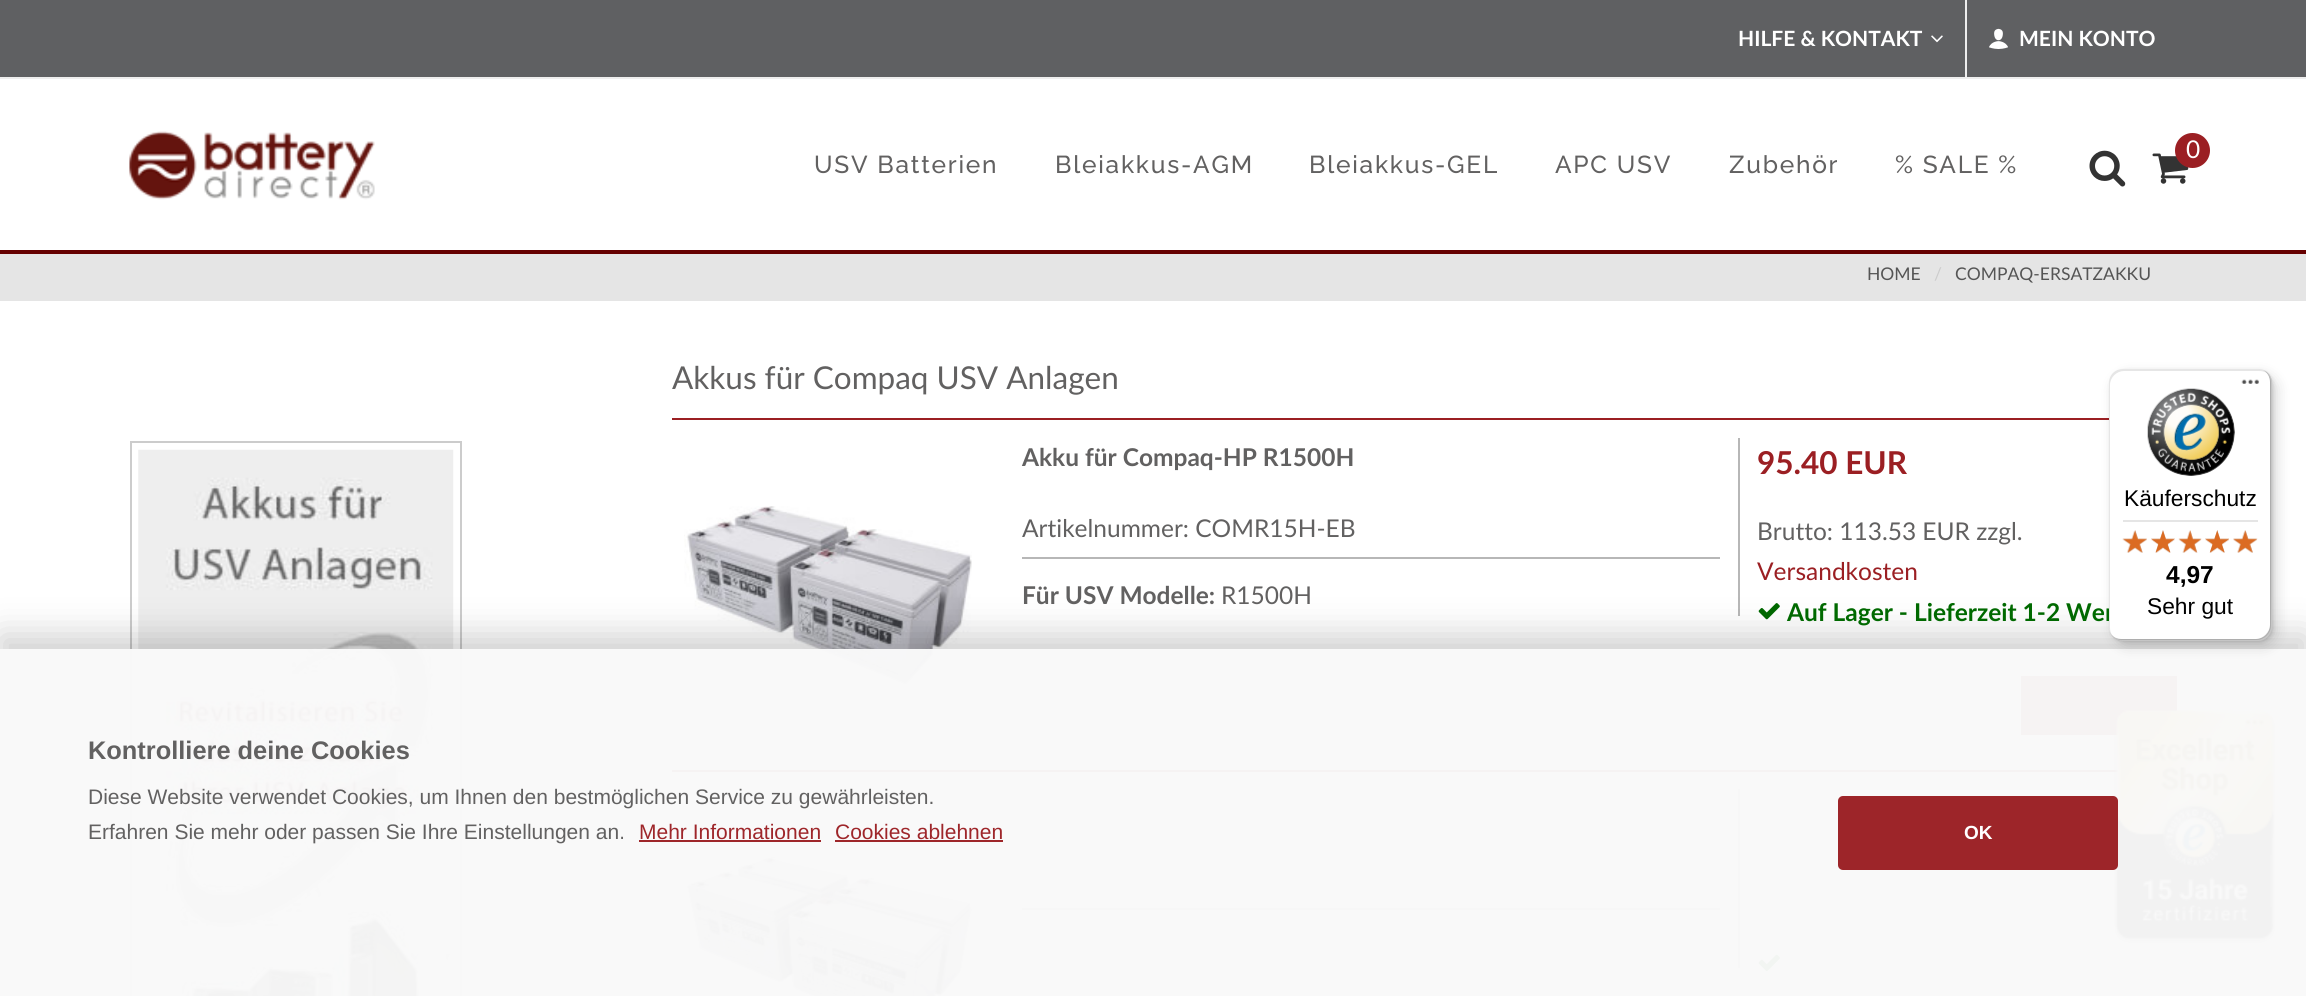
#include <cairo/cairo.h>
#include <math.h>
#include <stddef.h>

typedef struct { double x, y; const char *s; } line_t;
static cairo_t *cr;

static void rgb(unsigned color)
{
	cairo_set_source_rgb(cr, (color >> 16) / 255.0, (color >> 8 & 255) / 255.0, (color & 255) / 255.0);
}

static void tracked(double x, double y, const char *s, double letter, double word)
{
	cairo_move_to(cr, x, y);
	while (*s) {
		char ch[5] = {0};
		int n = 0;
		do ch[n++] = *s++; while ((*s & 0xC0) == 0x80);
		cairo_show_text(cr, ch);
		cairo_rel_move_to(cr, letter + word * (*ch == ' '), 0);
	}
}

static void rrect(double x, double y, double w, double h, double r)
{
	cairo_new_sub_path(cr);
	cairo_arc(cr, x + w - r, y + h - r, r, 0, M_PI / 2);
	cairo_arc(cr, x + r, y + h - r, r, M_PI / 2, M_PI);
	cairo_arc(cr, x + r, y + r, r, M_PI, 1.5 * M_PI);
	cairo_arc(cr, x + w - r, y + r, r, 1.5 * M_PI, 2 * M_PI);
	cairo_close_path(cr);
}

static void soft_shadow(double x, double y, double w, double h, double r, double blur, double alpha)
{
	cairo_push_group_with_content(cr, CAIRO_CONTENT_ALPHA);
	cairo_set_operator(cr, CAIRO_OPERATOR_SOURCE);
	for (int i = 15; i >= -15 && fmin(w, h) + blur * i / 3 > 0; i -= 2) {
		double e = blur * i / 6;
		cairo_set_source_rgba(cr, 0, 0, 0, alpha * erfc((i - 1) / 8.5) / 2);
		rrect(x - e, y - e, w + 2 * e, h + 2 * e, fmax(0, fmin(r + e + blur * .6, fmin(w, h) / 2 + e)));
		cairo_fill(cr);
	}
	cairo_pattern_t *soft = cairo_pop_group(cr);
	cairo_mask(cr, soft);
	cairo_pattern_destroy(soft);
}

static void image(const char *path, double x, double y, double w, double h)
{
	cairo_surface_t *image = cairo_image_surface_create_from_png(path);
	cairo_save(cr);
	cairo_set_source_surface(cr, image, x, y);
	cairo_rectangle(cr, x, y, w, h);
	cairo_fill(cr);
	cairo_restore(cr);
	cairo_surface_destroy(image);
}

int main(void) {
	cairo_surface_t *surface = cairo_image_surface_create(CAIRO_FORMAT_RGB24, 2306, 996);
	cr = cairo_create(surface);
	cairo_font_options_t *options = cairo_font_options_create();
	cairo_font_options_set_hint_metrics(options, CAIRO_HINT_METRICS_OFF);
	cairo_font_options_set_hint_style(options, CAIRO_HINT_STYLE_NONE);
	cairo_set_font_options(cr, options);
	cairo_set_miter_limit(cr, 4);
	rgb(0xffffff);
	cairo_paint(cr);
	rgb(0x5f6062);
	cairo_rectangle(cr, 0, 0, 2306, 77);
	cairo_fill(cr);
	rgb(0xeeeeee);
	cairo_rectangle(cr, 0, 77, 2306, 2);
	cairo_fill(cr);
	image("img/1.png", 1931, 35, 12, 8);
	cairo_rectangle(cr, 1965, 0, 2, 77);
	cairo_fill(cr);
	image("img/2.png", 1989, 28, 19, 21);
	rgb(0x660000);
	cairo_rectangle(cr, 0, 250, 2306, 4);
	cairo_fill(cr);
	image("img/3.png", 129, 131, 246, 69);
	image("img/4.png", 2089, 150, 37, 37);
	image("img/5.png", 2152, 153, 37, 31);
	rgb(0x9b1f23);
	cairo_arc(cr, 2192.5, 150.5, 17.5, 0, 2 * M_PI);
	cairo_fill(cr);
	rgb(0xe5e5e5);
	cairo_rectangle(cr, 0, 254, 2306, 47);
	cairo_fill(cr);
	cairo_rectangle(cr, 131, 442, 330, 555);
	rgb(0xcccccc);
	cairo_stroke(cr);
	image("img/6.png", 138, 449, 316, 547);
	rgb(0x9b1f23);
	cairo_rectangle(cr, 672, 418, 1437, 2);
	cairo_fill(cr);
	image("img/7.png", 684, 506, 288, 178);
	rgb(0xb7b7b7);
	cairo_rectangle(cr, 1738, 438, 2, 178);
	cairo_fill(cr);
	cairo_rectangle(cr, 1022, 557, 698, 2);
	cairo_fill(cr);
	image("img/8.png", 1758, 603, 22, 17);
	rgb(0x9b1f23);
	cairo_rectangle(cr, 2021, 676, 156, 59);
	cairo_fill(cr);
	cairo_rectangle(cr, 672, 770, 1446, 2);
	cairo_fill(cr);
	image("img/9.png", 684, 856, 289, 140);
	rgb(0xb7b7b7);
	cairo_rectangle(cr, 1738, 789, 2, 179);
	cairo_fill(cr);
	cairo_rectangle(cr, 1022, 908, 698, 2);
	cairo_fill(cr);
	image("img/10.png", 1758, 954, 22, 17);
	image("img/23.png", 2113, 709, 164, 236);
	cairo_save(cr);
	cairo_set_fill_rule(cr, CAIRO_FILL_RULE_EVEN_ODD);
	cairo_new_path(cr);
	cairo_move_to(cr, 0, 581);
	cairo_line_to(cr, 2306, 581);
	cairo_line_to(cr, 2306, 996);
	cairo_line_to(cr, 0, 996);
	cairo_close_path(cr);
	cairo_move_to(cr, 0, 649);
	cairo_line_to(cr, 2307, 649);
	cairo_line_to(cr, 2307, 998);
	cairo_line_to(cr, 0, 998);
	cairo_close_path(cr);
	cairo_clip(cr);
	rgb(0x000000);
	soft_shadow(0, 635, 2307, 349, 0, 17.5, 0.19);
	cairo_restore(cr);
	cairo_set_source_rgba(cr, 0.976, 0.976, 0.976, 0.97);
	cairo_rectangle(cr, 0, 649, 2306, 347);
	cairo_fill(cr);
	rgb(0x000000);
	soft_shadow(2114, 375, 163, 271, 14, 7, 0.15);
	soft_shadow(2111, 371, 162, 271, 14, 2, 0.15);
	rgb(0x9e262a);
	cairo_rectangle(cr, 639, 840, 182, 2);
	cairo_fill(cr);
	cairo_rectangle(cr, 835, 840, 168, 2);
	cairo_fill(cr);
	cairo_set_source_rgba(cr, 0.608, 0.122, 0.137, 0.97);
	rrect(1838, 796, 280, 74, 5);
	cairo_fill(cr);
	cairo_select_font_face(cr, "Lato", CAIRO_FONT_SLANT_NORMAL, CAIRO_FONT_WEIGHT_BOLD);
	cairo_set_font_size(cr, 21);
	rgb(0xffffff);
	cairo_move_to(cr, 1738, 46);
	cairo_show_text(cr, "HILFE & KONTAKT");
	cairo_move_to(cr, 2019, 46);
	cairo_show_text(cr, "MEIN KONTO");
	cairo_select_font_face(cr, "Raleway Medium", CAIRO_FONT_SLANT_NORMAL, CAIRO_FONT_WEIGHT_NORMAL);
	cairo_set_font_size(cr, 24.5);
	rgb(0x626161);
	{
		static const line_t items[] = {
			{814, 173, "USV Batterien"},
			{1055, 173, "Bleiakkus-AGM"},
			{1309, 173, "Bleiakkus-GEL"},
			{1555, 173, "APC USV"},
			{1729, 173, "Zubehör"},
			{1895, 173, "% SALE %"},
		};
		for (size_t i = 0; i < sizeof items / sizeof *items; i++) {
			tracked(items[i].x, items[i].y, items[i].s, 1.75, 0);
		}
	}
	cairo_select_font_face(cr, "Lato", CAIRO_FONT_SLANT_NORMAL, CAIRO_FONT_WEIGHT_NORMAL);
	rgb(0xffffff);
	cairo_move_to(cr, 2186, 158);
	cairo_show_text(cr, "0");
	cairo_set_font_size(cr, 17.5);
	rgb(0x555555);
	cairo_move_to(cr, 1867, 280);
	cairo_show_text(cr, "HOME");
	rgb(0xcccccc);
	cairo_move_to(cr, 1934, 280);
	cairo_show_text(cr, "/");
	rgb(0x555555);
	cairo_move_to(cr, 1955, 280);
	cairo_show_text(cr, "COMPAQ-ERSATZAKKU");
	cairo_set_font_size(cr, 31.5);
	rgb(0x626161);
	cairo_move_to(cr, 672, 389);
	cairo_show_text(cr, "Akkus für Compaq USV Anlagen");
	cairo_select_font_face(cr, "Lato", CAIRO_FONT_SLANT_NORMAL, CAIRO_FONT_WEIGHT_BOLD);
	cairo_set_font_size(cr, 24.5);
	cairo_move_to(cr, 1022, 466);
	cairo_show_text(cr, "Akku für Compaq-HP R1500H");
	cairo_select_font_face(cr, "Lato", CAIRO_FONT_SLANT_NORMAL, CAIRO_FONT_WEIGHT_NORMAL);
	cairo_move_to(cr, 1022, 537);
	cairo_show_text(cr, "Artikelnummer: COMR15H-EB");
	cairo_select_font_face(cr, "Lato", CAIRO_FONT_SLANT_NORMAL, CAIRO_FONT_WEIGHT_BOLD);
	cairo_move_to(cr, 1022, 604);
	cairo_show_text(cr, "Für USV Modelle:");
	cairo_select_font_face(cr, "Lato", CAIRO_FONT_SLANT_NORMAL, CAIRO_FONT_WEIGHT_NORMAL);
	cairo_move_to(cr, 1221, 604);
	cairo_show_text(cr, "R1500H");
	cairo_select_font_face(cr, "Lato", CAIRO_FONT_SLANT_NORMAL, CAIRO_FONT_WEIGHT_BOLD);
	cairo_set_font_size(cr, 31.5);
	rgb(0x9b1f23);
	cairo_move_to(cr, 1757, 474);
	cairo_show_text(cr, "95.40 EUR");
	cairo_select_font_face(cr, "Lato", CAIRO_FONT_SLANT_NORMAL, CAIRO_FONT_WEIGHT_NORMAL);
	cairo_set_font_size(cr, 24.5);
	rgb(0x626161);
	cairo_move_to(cr, 1757, 540);
	cairo_show_text(cr, "Brutto: 113.53 EUR zzgl.");
	rgb(0x9b1f23);
	cairo_move_to(cr, 1757, 580);
	cairo_show_text(cr, "Versandkosten");
	cairo_select_font_face(cr, "Lato", CAIRO_FONT_SLANT_NORMAL, CAIRO_FONT_WEIGHT_BOLD);
	rgb(0x006900);
	cairo_move_to(cr, 1787, 621);
	cairo_show_text(cr, "Auf Lager - Lieferzeit 1-2 Wer");
	rgb(0xffffff);
	rrect(2109, 369, 163, 272, 14);
	cairo_fill(cr);
	cairo_set_source_rgba(cr, 0, 0, 0, 0.1);
	cairo_new_path(cr);
	cairo_move_to(cr, 2124, 371);
	cairo_line_to(cr, 2259, 371);
	cairo_curve_to(cr, 2264, 371, 2268, 373, 2271, 377);
	cairo_curve_to(cr, 2268, 372, 2264, 369, 2258, 369);
	cairo_line_to(cr, 2123, 369);
	cairo_curve_to(cr, 2115, 369, 2109, 375, 2109, 383);
	cairo_line_to(cr, 2109, 627);
	cairo_curve_to(cr, 2109, 632, 2111, 636, 2115, 638);
	cairo_curve_to(cr, 2112, 636, 2110, 632, 2110, 628);
	cairo_line_to(cr, 2110, 385);
	cairo_curve_to(cr, 2110, 377, 2117, 371, 2124, 371);
	cairo_close_path(cr);
	cairo_fill(cr);
	cairo_set_source_rgba(cr, 0, 0, 0, 0.2);
	cairo_new_path(cr);
	cairo_move_to(cr, 2112, 635);
	cairo_curve_to(cr, 2114, 639, 2118, 641, 2123, 641);
	cairo_line_to(cr, 2258, 641);
	cairo_curve_to(cr, 2266, 641, 2272, 635, 2272, 627);
	cairo_line_to(cr, 2272, 383);
	cairo_curve_to(cr, 2272, 377, 2268, 372, 2263, 370);
	cairo_curve_to(cr, 2267, 372, 2270, 377, 2270, 382);
	cairo_line_to(cr, 2270, 625);
	cairo_curve_to(cr, 2270, 632, 2263, 639, 2256, 639);
	cairo_line_to(cr, 2121, 639);
	cairo_curve_to(cr, 2117, 639, 2114, 638, 2112, 635);
	cairo_close_path(cr);
	cairo_fill(cr);
	cairo_set_source_rgba(cr, 0.196, 0.196, 0.196, 0.2);
	cairo_new_path(cr);
	cairo_move_to(cr, 2110, 633);
	cairo_curve_to(cr, 2113, 638, 2117, 641, 2123, 641);
	cairo_line_to(cr, 2258, 641);
	cairo_curve_to(cr, 2266, 641, 2272, 635, 2272, 627);
	cairo_line_to(cr, 2272, 383);
	cairo_curve_to(cr, 2272, 377, 2269, 373, 2264, 370);
	cairo_curve_to(cr, 2268, 373, 2270, 377, 2270, 382);
	cairo_line_to(cr, 2270, 625);
	cairo_curve_to(cr, 2270, 633, 2264, 639, 2256, 639);
	cairo_line_to(cr, 2122, 639);
	cairo_curve_to(cr, 2117, 639, 2113, 637, 2110, 633);
	cairo_close_path(cr);
	cairo_fill(cr);
	cairo_set_source_rgba(cr, 1, 1, 1, 0.3);
	cairo_new_path(cr);
	cairo_move_to(cr, 2112, 635);
	cairo_curve_to(cr, 2114, 639, 2118, 641, 2123, 641);
	cairo_line_to(cr, 2258, 641);
	cairo_curve_to(cr, 2266, 641, 2272, 635, 2272, 627);
	cairo_line_to(cr, 2272, 383);
	cairo_curve_to(cr, 2272, 378, 2269, 373, 2265, 371);
	cairo_curve_to(cr, 2268, 373, 2271, 378, 2271, 382);
	cairo_line_to(cr, 2271, 626);
	cairo_curve_to(cr, 2271, 633, 2264, 640, 2257, 640);
	cairo_line_to(cr, 2122, 640);
	cairo_curve_to(cr, 2118, 640, 2114, 638, 2112, 635);
	cairo_close_path(cr);
	cairo_fill(cr);
	image("img/11.png", 2241, 379, 18, 5);
	image("img/12.png", 2147, 388, 88, 88);
	cairo_select_font_face(cr, "Liberation Sans", CAIRO_FONT_SLANT_NORMAL, CAIRO_FONT_WEIGHT_NORMAL);
	cairo_set_font_size(cr, 22.75);
	rgb(0x000000);
	cairo_move_to(cr, 2124, 506);
	cairo_show_text(cr, "Käuferschutz");
	rgb(0xe5e5e5);
	cairo_rectangle(cr, 2123, 520, 135, 2);
	cairo_fill(cr);
	image("img/13.png", 2122, 530, 25, 23);
	image("img/14.png", 2151, 530, 24, 23);
	image("img/15.png", 2179, 530, 23, 23);
	image("img/16.png", 2205, 530, 24, 23);
	image("img/17.png", 2233, 530, 24, 23);
	image("img/18.png", 2122, 530, 25, 23);
	image("img/19.png", 2151, 530, 24, 23);
	image("img/20.png", 2178, 530, 24, 23);
	image("img/21.png", 2205, 530, 24, 23);
	image("img/22.png", 2233, 530, 25, 23);
	cairo_select_font_face(cr, "Liberation Sans", CAIRO_FONT_SLANT_NORMAL, CAIRO_FONT_WEIGHT_BOLD);
	cairo_set_font_size(cr, 24.5);
	rgb(0x000000);
	cairo_move_to(cr, 2166, 583);
	cairo_show_text(cr, "4,97");
	cairo_select_font_face(cr, "Liberation Sans", CAIRO_FONT_SLANT_NORMAL, CAIRO_FONT_WEIGHT_NORMAL);
	cairo_set_font_size(cr, 22.75);
	cairo_move_to(cr, 2147, 614);
	cairo_show_text(cr, "Sehr gut");
	cairo_select_font_face(cr, "Liberation Sans", CAIRO_FONT_SLANT_NORMAL, CAIRO_FONT_WEIGHT_BOLD);
	cairo_set_font_size(cr, 25.4);
	rgb(0x626161);
	cairo_move_to(cr, 88, 759);
	cairo_show_text(cr, "Kontrolliere deine Cookies");
	cairo_select_font_face(cr, "Liberation Sans", CAIRO_FONT_SLANT_NORMAL, CAIRO_FONT_WEIGHT_NORMAL);
	cairo_set_font_size(cr, 21);
	cairo_move_to(cr, 88, 804);
	cairo_show_text(cr, "Diese Website verwendet Cookies, um Ihnen den bestmöglichen Service zu gewährleisten.");
	cairo_move_to(cr, 88, 839);
	cairo_show_text(cr, "Erfahren Sie mehr oder passen Sie Ihre Einstellungen an.");
	rgb(0x9e262a);
	cairo_move_to(cr, 639, 839);
	cairo_show_text(cr, "Mehr Informationen");
	cairo_move_to(cr, 835, 839);
	cairo_show_text(cr, "Cookies ablehnen");
	cairo_select_font_face(cr, "Liberation Sans", CAIRO_FONT_SLANT_NORMAL, CAIRO_FONT_WEIGHT_BOLD);
	cairo_set_font_size(cr, 19);
	rgb(0xffffff);
	cairo_move_to(cr, 1964, 839);
	cairo_show_text(cr, "OK");
	cairo_surface_write_to_png(surface, "page.png");
	cairo_font_options_destroy(options);
	cairo_destroy(cr);
	cairo_surface_destroy(surface);
	return 0;
}
